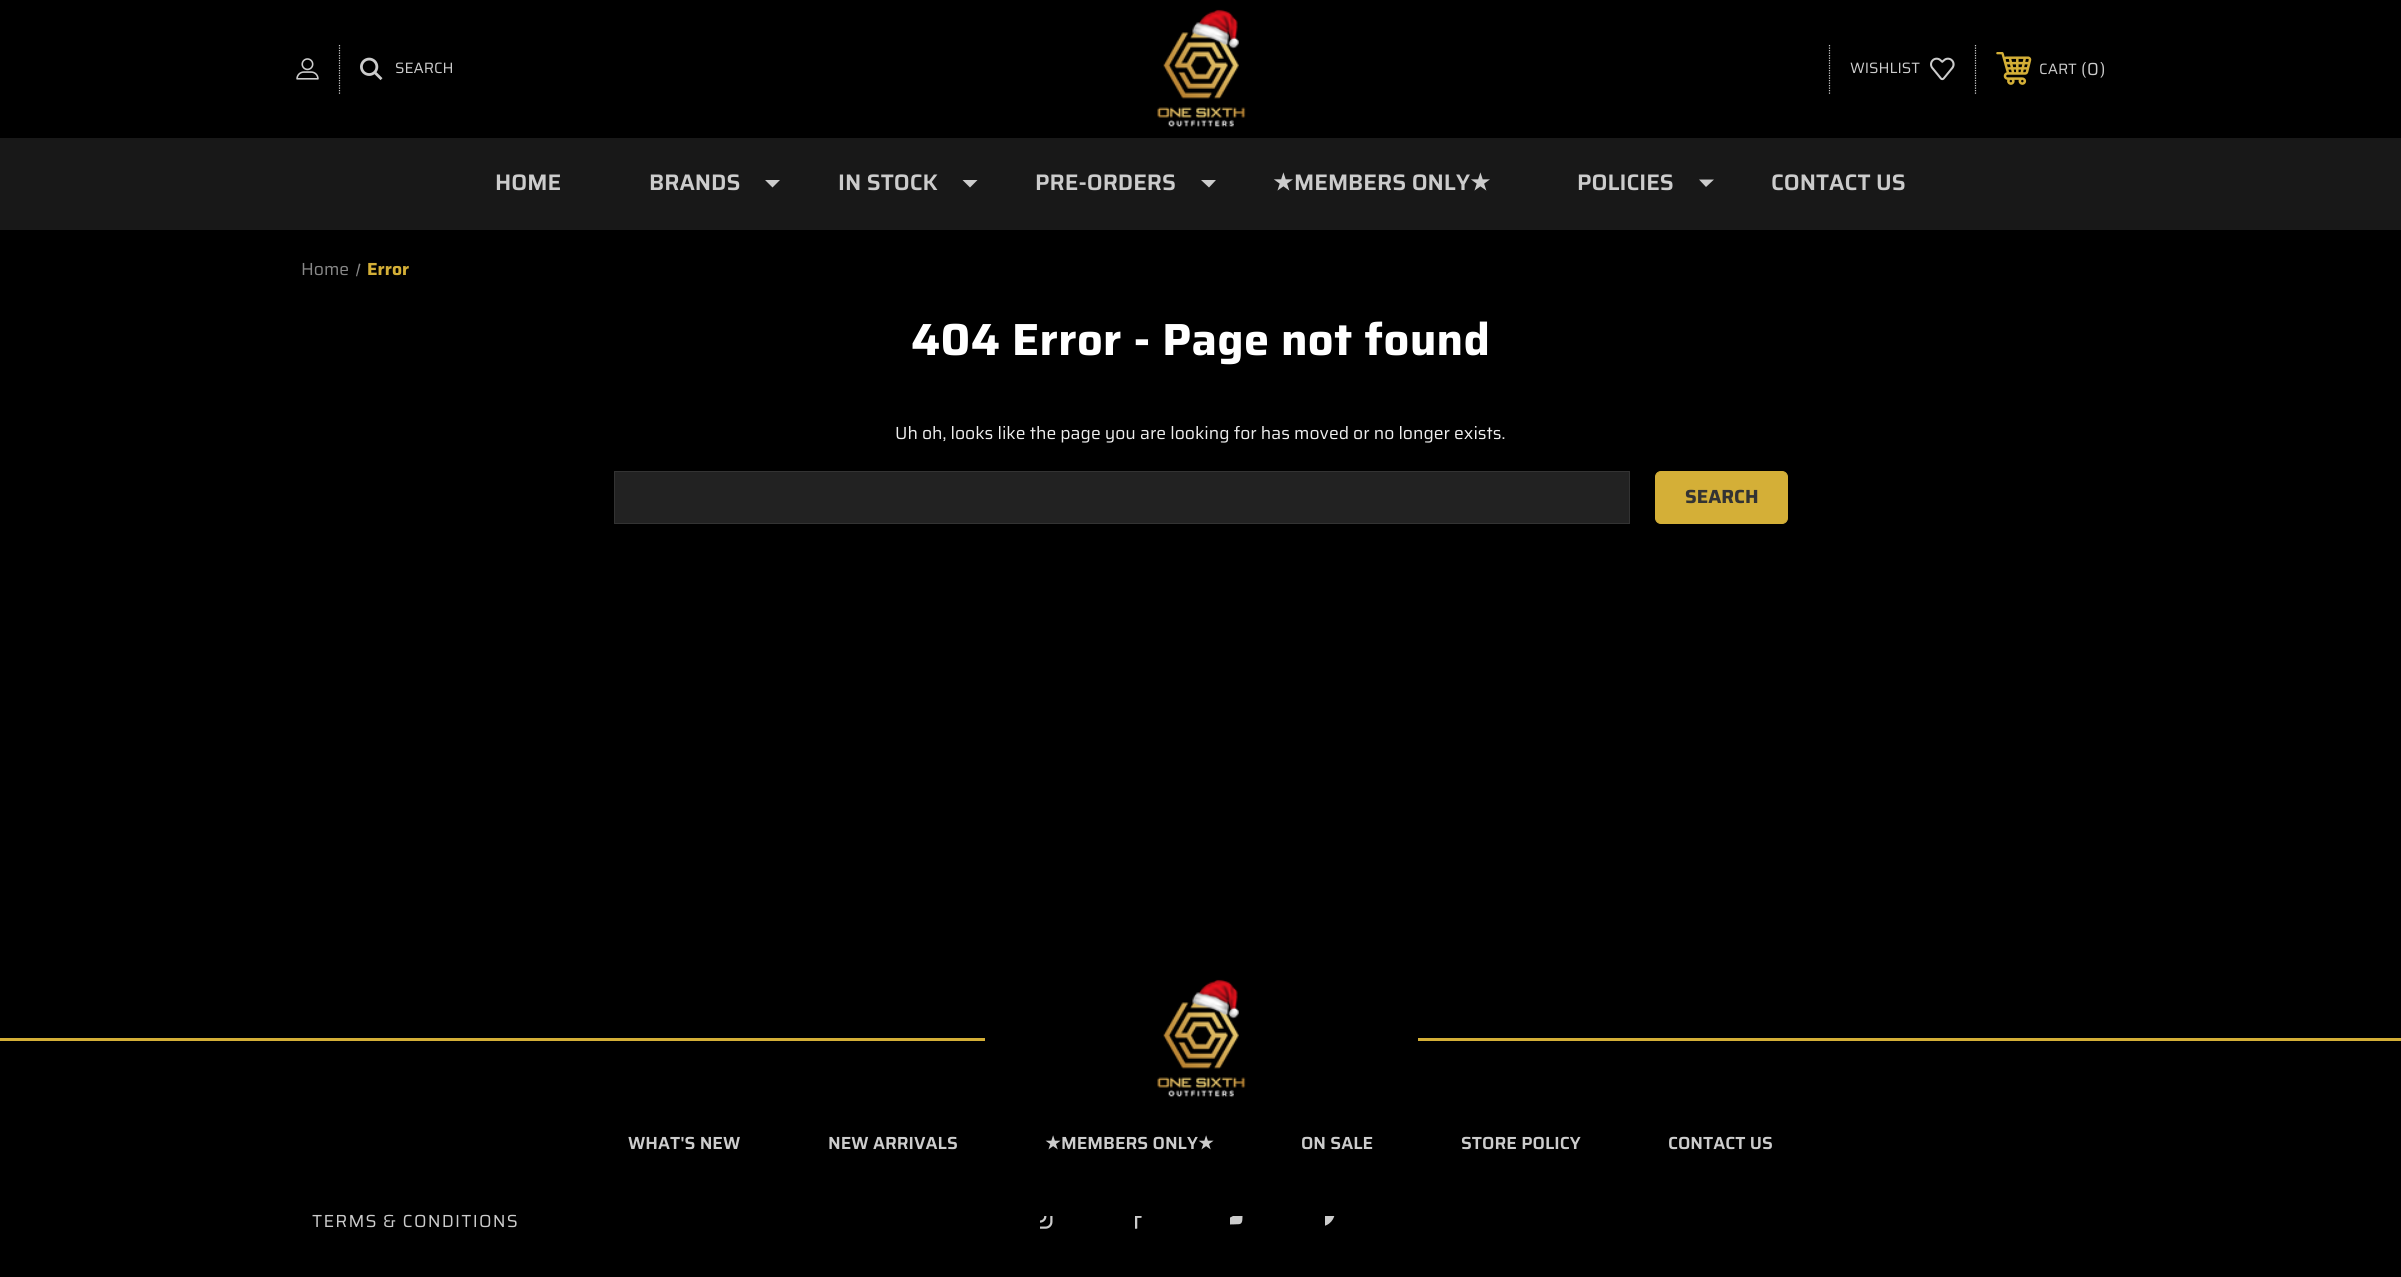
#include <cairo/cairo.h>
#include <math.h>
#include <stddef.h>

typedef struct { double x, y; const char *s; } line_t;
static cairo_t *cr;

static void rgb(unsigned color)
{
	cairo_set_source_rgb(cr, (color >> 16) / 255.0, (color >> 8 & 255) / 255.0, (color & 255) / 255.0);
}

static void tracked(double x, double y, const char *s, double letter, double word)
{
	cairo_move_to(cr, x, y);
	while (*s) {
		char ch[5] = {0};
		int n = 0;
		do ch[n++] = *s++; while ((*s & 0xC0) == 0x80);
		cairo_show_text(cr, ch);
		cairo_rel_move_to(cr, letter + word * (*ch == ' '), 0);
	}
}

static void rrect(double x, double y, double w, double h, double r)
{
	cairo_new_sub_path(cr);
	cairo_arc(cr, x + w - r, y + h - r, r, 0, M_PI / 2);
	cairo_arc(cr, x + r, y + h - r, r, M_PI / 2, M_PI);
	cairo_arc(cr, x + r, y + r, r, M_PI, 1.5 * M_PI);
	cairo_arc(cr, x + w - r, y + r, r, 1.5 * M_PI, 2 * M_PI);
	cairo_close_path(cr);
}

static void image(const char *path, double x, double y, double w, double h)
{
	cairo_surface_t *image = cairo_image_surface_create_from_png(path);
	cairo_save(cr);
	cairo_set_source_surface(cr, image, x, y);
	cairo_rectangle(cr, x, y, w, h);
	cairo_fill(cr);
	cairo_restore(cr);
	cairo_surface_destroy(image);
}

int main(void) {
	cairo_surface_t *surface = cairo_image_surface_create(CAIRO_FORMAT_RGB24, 2401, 1277);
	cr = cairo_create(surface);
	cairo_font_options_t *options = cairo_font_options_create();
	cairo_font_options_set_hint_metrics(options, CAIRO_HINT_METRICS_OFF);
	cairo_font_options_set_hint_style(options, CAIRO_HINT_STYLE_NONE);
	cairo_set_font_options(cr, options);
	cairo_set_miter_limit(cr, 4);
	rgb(0x000000);
	cairo_paint(cr);
	rgb(0x181818);
	cairo_rectangle(cr, 0, 138, 2401, 92);
	cairo_fill(cr);
	image("img/1.png", 296, 58, 23, 22);
	cairo_new_path(cr);
	cairo_move_to(cr, 339.5, 45);
	cairo_line_to(cr, 339.5, 94);
	rgb(0xcccccc);
	cairo_set_line_width(cr, 1.2);
	cairo_set_dash(cr, (double[]){1.25, 1.25}, 2, 0);
	cairo_stroke(cr);
	image("img/2.png", 360, 57, 23, 24);
	image("img/3.png", 1157, 9, 89, 119);
	cairo_new_path(cr);
	cairo_move_to(cr, 1975.5, 45);
	cairo_line_to(cr, 1975.5, 94);
	cairo_stroke(cr);
	cairo_new_path(cr);
	cairo_move_to(cr, 1829.5, 45);
	cairo_line_to(cr, 1829.5, 94);
	cairo_stroke(cr);
	image("img/4.png", 1930, 57, 25, 24);
	image("img/5.png", 1996, 52, 36, 33);
	cairo_new_path(cr);
	cairo_move_to(cr, 765, 180);
	cairo_line_to(cr, 772.5, 187.5);
	cairo_line_to(cr, 780, 180);
	cairo_close_path(cr);
	cairo_fill(cr);
	cairo_new_path(cr);
	cairo_move_to(cr, 962.5, 180);
	cairo_line_to(cr, 970, 187.5);
	cairo_line_to(cr, 977.5, 180);
	cairo_close_path(cr);
	cairo_fill(cr);
	cairo_new_path(cr);
	cairo_move_to(cr, 1201, 180);
	cairo_line_to(cr, 1209, 187.5);
	cairo_line_to(cr, 1216, 180);
	cairo_close_path(cr);
	cairo_fill(cr);
	cairo_new_path(cr);
	cairo_move_to(cr, 1699, 179.5);
	cairo_line_to(cr, 1706, 187);
	cairo_line_to(cr, 1714, 179.5);
	cairo_close_path(cr);
	cairo_fill(cr);
	rgb(0x888888);
	cairo_new_path(cr);
	cairo_move_to(cr, 359, 263.5);
	cairo_line_to(cr, 360.5, 264);
	cairo_line_to(cr, 357, 276.5);
	cairo_line_to(cr, 356, 276);
	cairo_close_path(cr);
	cairo_fill(cr);
	rgb(0x222222);
	cairo_rectangle(cr, 614.5, 471.5, 1015, 52);
	cairo_fill_preserve(cr);
	rgb(0x333333);
	cairo_set_line_width(cr, 1);
	cairo_set_dash(cr, NULL, 0, 0);
	cairo_stroke(cr);
	rgb(0xd4af37);
	rrect(1655.5, 471.5, 132, 52, 5.5);
	cairo_fill_preserve(cr);
	cairo_stroke(cr);
	cairo_rectangle(cr, 0, 1038, 2401, 3);
	cairo_fill(cr);
	rgb(0x000000);
	cairo_rectangle(cr, 985, 1038, 433, 3);
	cairo_fill(cr);
	image("img/3.png", 1157, 979, 89, 119);
	image("img/6.png", 1040, 1216, 13, 13);
	image("img/7.png", 1135, 1216, 7, 13);
	image("img/8.png", 1230, 1216, 13, 9);
	image("img/9.png", 1325, 1216, 10, 10);
	cairo_select_font_face(cr, "Saira", CAIRO_FONT_SLANT_NORMAL, CAIRO_FONT_WEIGHT_NORMAL);
	cairo_set_font_size(cr, 15);
	rgb(0xcccccc);
	{
		static const line_t items[] = {
			{395, 73, "SEARCH"},
			{1850, 73, "WISHLIST"},
			{2039, 74, "CART"},
		};
		for (size_t i = 0; i < sizeof items / sizeof *items; i++) {
			cairo_move_to(cr, items[i].x, items[i].y);
			cairo_show_text(cr, items[i].s);
		}
	}
	cairo_set_font_size(cr, 17.5);
	{
		static const line_t items[] = {
			{2081, 75, "("},
			{2087, 75, "0"},
			{2100, 75, ")"},
		};
		for (size_t i = 0; i < sizeof items / sizeof *items; i++) {
			cairo_move_to(cr, items[i].x, items[i].y);
			cairo_show_text(cr, items[i].s);
		}
	}
	cairo_select_font_face(cr, "Saira SemiBold", CAIRO_FONT_SLANT_NORMAL, CAIRO_FONT_WEIGHT_NORMAL);
	cairo_set_font_size(cr, 22.5);
	{
		static const line_t items[] = {
			{495, 190, "HOME"},
			{649, 190, "BRANDS"},
			{838, 190, "IN STOCK"},
			{1035, 190, "PRE-ORDERS"},
		};
		for (size_t i = 0; i < sizeof items / sizeof *items; i++) {
			cairo_move_to(cr, items[i].x, items[i].y);
			cairo_show_text(cr, items[i].s);
		}
	}
	cairo_select_font_face(cr, "DejaVu Sans", CAIRO_FONT_SLANT_NORMAL, CAIRO_FONT_WEIGHT_BOLD);
	cairo_move_to(cr, 1273, 190);
	cairo_show_text(cr, "★");
	cairo_select_font_face(cr, "Saira SemiBold", CAIRO_FONT_SLANT_NORMAL, CAIRO_FONT_WEIGHT_NORMAL);
	cairo_move_to(cr, 1294, 190);
	cairo_show_text(cr, "MEMBERS ONLY");
	cairo_select_font_face(cr, "DejaVu Sans", CAIRO_FONT_SLANT_NORMAL, CAIRO_FONT_WEIGHT_BOLD);
	cairo_move_to(cr, 1470, 190);
	cairo_show_text(cr, "★");
	cairo_select_font_face(cr, "Saira SemiBold", CAIRO_FONT_SLANT_NORMAL, CAIRO_FONT_WEIGHT_NORMAL);
	cairo_move_to(cr, 1577, 190);
	cairo_show_text(cr, "POLICIES");
	cairo_move_to(cr, 1771, 190);
	cairo_show_text(cr, "CONTACT US");
	cairo_select_font_face(cr, "Saira", CAIRO_FONT_SLANT_NORMAL, CAIRO_FONT_WEIGHT_NORMAL);
	cairo_set_font_size(cr, 17.5);
	rgb(0x888888);
	cairo_move_to(cr, 301, 275);
	cairo_show_text(cr, "Home");
	cairo_select_font_face(cr, "Saira", CAIRO_FONT_SLANT_NORMAL, CAIRO_FONT_WEIGHT_BOLD);
	rgb(0xd4af37);
	cairo_move_to(cr, 367, 275);
	cairo_show_text(cr, "Error");
	cairo_set_font_size(cr, 45);
	rgb(0xffffff);
	tracked(911, 355, "404 Error - Page not found", 0.3, 0);
	cairo_select_font_face(cr, "Saira", CAIRO_FONT_SLANT_NORMAL, CAIRO_FONT_WEIGHT_NORMAL);
	cairo_set_font_size(cr, 17.5);
	rgb(0xeeeeee);
	cairo_move_to(cr, 895, 439);
	cairo_show_text(cr, "Uh oh, looks like the page you are looking for has moved or no longer exists.");
	cairo_select_font_face(cr, "Saira", CAIRO_FONT_SLANT_NORMAL, CAIRO_FONT_WEIGHT_BOLD);
	cairo_set_font_size(cr, 19);
	rgb(0x333333);
	cairo_move_to(cr, 1685, 503);
	cairo_show_text(cr, "SEARCH");
	cairo_select_font_face(cr, "Saira SemiBold", CAIRO_FONT_SLANT_NORMAL, CAIRO_FONT_WEIGHT_NORMAL);
	cairo_set_font_size(cr, 17.5);
	rgb(0xcccccc);
	cairo_move_to(cr, 628, 1149);
	cairo_show_text(cr, "WHAT'S NEW");
	cairo_move_to(cr, 828, 1149);
	cairo_show_text(cr, "NEW ARRIVALS");
	cairo_select_font_face(cr, "DejaVu Sans", CAIRO_FONT_SLANT_NORMAL, CAIRO_FONT_WEIGHT_BOLD);
	cairo_move_to(cr, 1045, 1149);
	cairo_show_text(cr, "★");
	cairo_select_font_face(cr, "Saira SemiBold", CAIRO_FONT_SLANT_NORMAL, CAIRO_FONT_WEIGHT_NORMAL);
	cairo_move_to(cr, 1061, 1149);
	cairo_show_text(cr, "MEMBERS ONLY");
	cairo_select_font_face(cr, "DejaVu Sans", CAIRO_FONT_SLANT_NORMAL, CAIRO_FONT_WEIGHT_BOLD);
	cairo_move_to(cr, 1198, 1149);
	cairo_show_text(cr, "★");
	cairo_select_font_face(cr, "Saira SemiBold", CAIRO_FONT_SLANT_NORMAL, CAIRO_FONT_WEIGHT_NORMAL);
	{
		static const line_t items[] = {
			{1301, 1149, "ON SALE"},
			{1461, 1149, "STORE POLICY"},
			{1668, 1149, "CONTACT US"},
		};
		for (size_t i = 0; i < sizeof items / sizeof *items; i++) {
			cairo_move_to(cr, items[i].x, items[i].y);
			cairo_show_text(cr, items[i].s);
		}
	}
	cairo_select_font_face(cr, "Saira", CAIRO_FONT_SLANT_NORMAL, CAIRO_FONT_WEIGHT_NORMAL);
	tracked(312, 1227, "TERMS & CONDITIONS", 1.25, 0);
	cairo_surface_write_to_png(surface, "page.png");
	cairo_font_options_destroy(options);
	cairo_destroy(cr);
	cairo_surface_destroy(surface);
	return 0;
}
